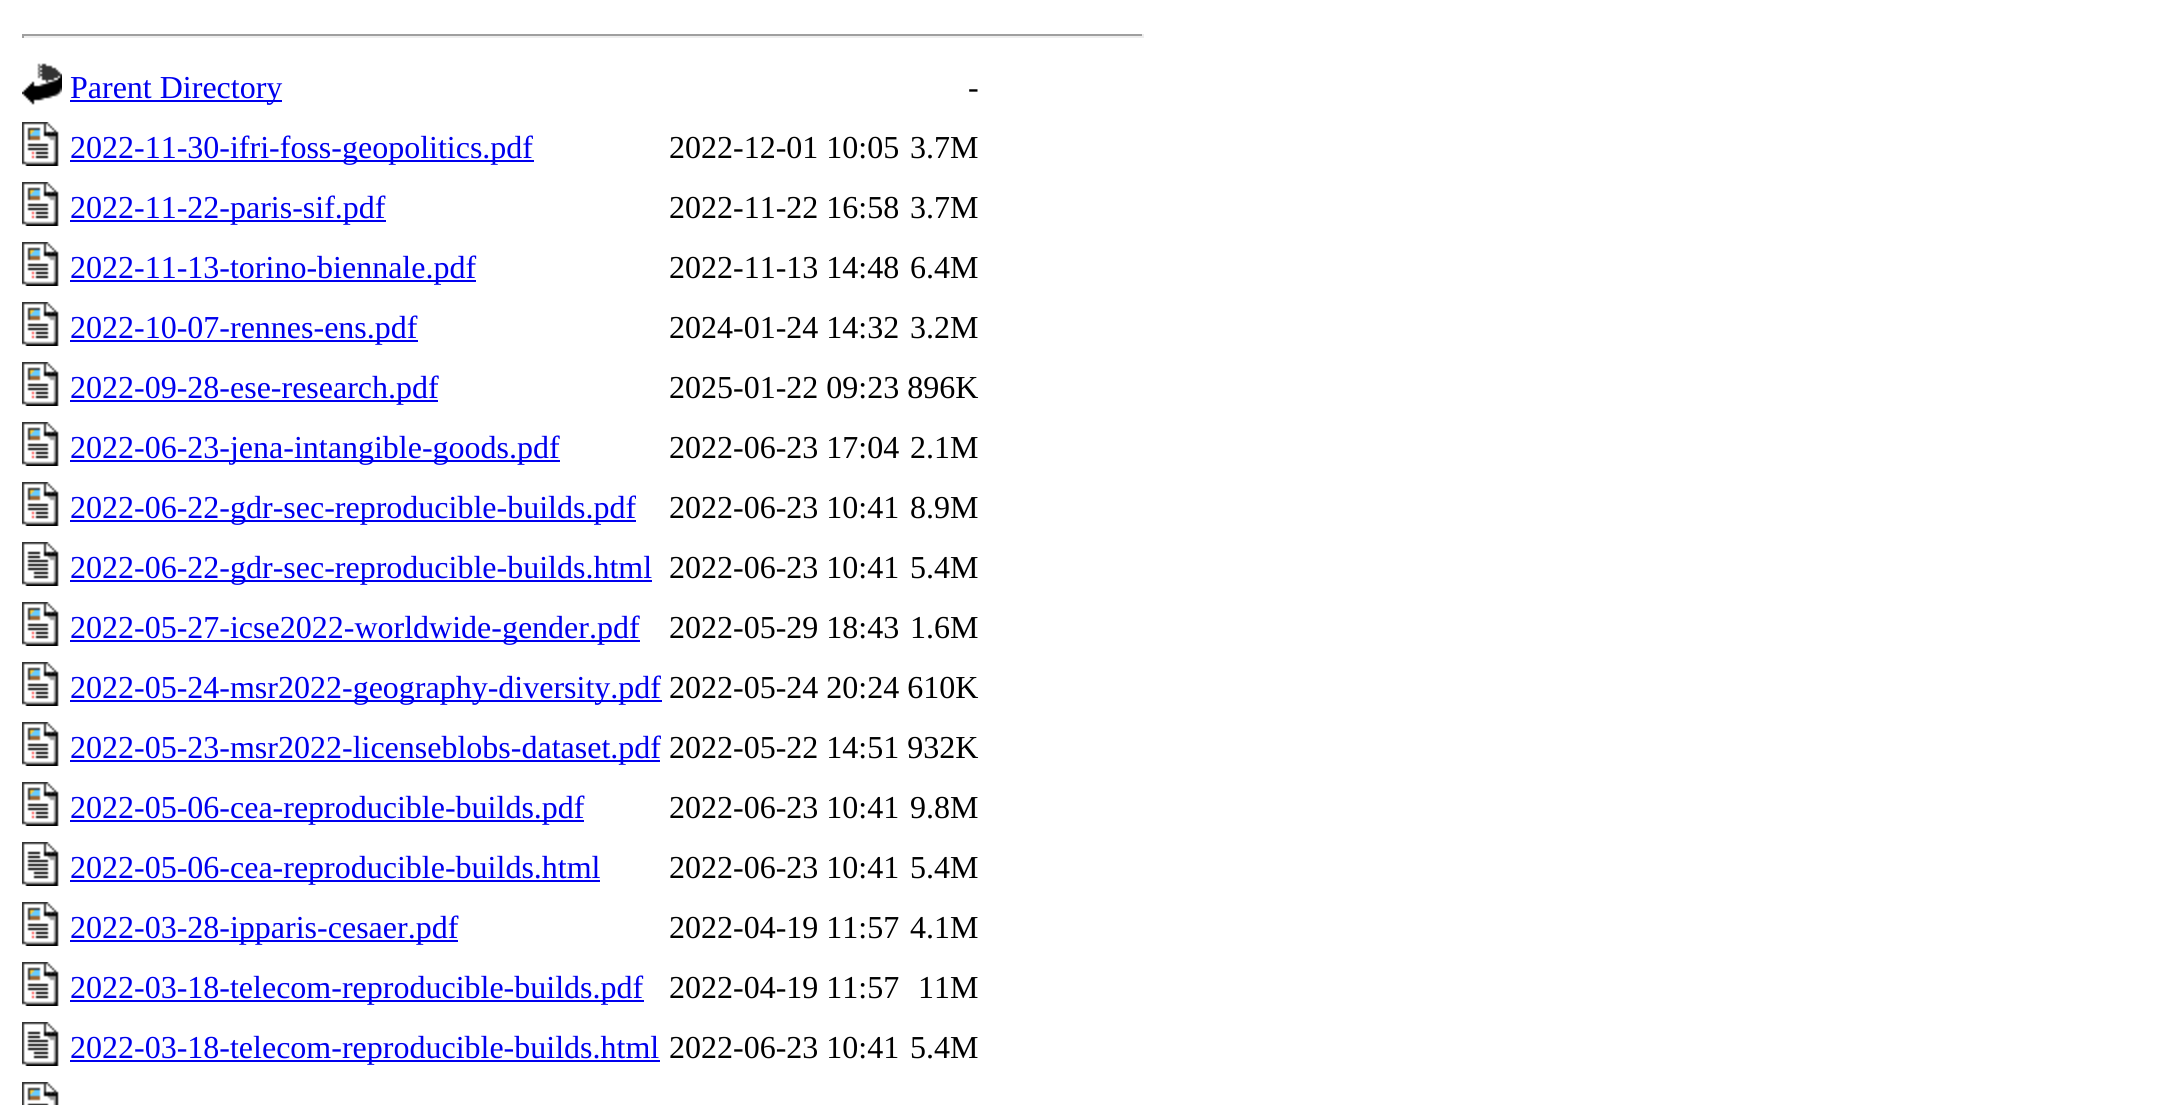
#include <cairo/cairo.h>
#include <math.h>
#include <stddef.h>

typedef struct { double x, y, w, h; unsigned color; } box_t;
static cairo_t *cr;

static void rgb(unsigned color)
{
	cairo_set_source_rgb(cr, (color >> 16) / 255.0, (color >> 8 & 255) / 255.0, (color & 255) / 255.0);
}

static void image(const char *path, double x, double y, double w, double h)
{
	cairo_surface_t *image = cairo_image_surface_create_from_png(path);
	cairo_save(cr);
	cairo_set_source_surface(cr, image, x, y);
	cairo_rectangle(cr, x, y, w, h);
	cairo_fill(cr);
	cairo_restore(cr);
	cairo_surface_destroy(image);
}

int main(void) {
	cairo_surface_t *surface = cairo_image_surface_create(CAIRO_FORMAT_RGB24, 2171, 1105);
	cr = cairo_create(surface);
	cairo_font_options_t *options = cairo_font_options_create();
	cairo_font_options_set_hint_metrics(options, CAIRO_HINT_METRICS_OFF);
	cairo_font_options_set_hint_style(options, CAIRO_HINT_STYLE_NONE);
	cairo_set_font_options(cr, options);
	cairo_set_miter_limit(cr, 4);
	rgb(0xffffff);
	cairo_paint(cr);
	{
		static const box_t items[] = {
			{22, 34, 1122, 2, 0x9f9f9f},
			{1142, 34, 2, 4, 0xeeeeee},
			{22, 36, 1122, 2, 0xeeeeee},
			{22, 34, 2, 4, 0x9f9f9f},
		};
		for (size_t i = 0; i < sizeof items / sizeof *items; i++) {
			rgb(items[i].color);
			cairo_rectangle(cr, items[i].x, items[i].y, items[i].w, items[i].h);
			cairo_fill(cr);
		}
	}
	image("img/1.png", 22, 63, 40, 42);
	rgb(0x0000ee);
	cairo_rectangle(cr, 70, 100, 212, 2);
	cairo_fill(cr);
	image("img/2.png", 22, 122, 37, 44);
	cairo_rectangle(cr, 70, 160, 464, 2);
	cairo_fill(cr);
	image("img/2.png", 22, 182, 37, 44);
	cairo_rectangle(cr, 70, 220, 316, 2);
	cairo_fill(cr);
	image("img/2.png", 22, 242, 37, 44);
	cairo_rectangle(cr, 70, 280, 406, 2);
	cairo_fill(cr);
	image("img/2.png", 22, 302, 37, 44);
	cairo_rectangle(cr, 70, 340, 348, 2);
	cairo_fill(cr);
	image("img/2.png", 22, 362, 37, 44);
	cairo_rectangle(cr, 70, 400, 368, 2);
	cairo_fill(cr);
	image("img/2.png", 22, 422, 37, 44);
	cairo_rectangle(cr, 70, 460, 490, 2);
	cairo_fill(cr);
	image("img/2.png", 22, 482, 37, 44);
	cairo_rectangle(cr, 70, 520, 566, 2);
	cairo_fill(cr);
	image("img/3.png", 22, 542, 37, 44);
	cairo_rectangle(cr, 70, 580, 582, 2);
	cairo_fill(cr);
	image("img/2.png", 22, 602, 37, 44);
	cairo_rectangle(cr, 70, 640, 570, 2);
	cairo_fill(cr);
	image("img/2.png", 22, 662, 37, 44);
	cairo_rectangle(cr, 70, 700, 592, 2);
	cairo_fill(cr);
	image("img/2.png", 22, 722, 37, 44);
	cairo_rectangle(cr, 70, 760, 590, 2);
	cairo_fill(cr);
	image("img/2.png", 22, 782, 37, 44);
	cairo_rectangle(cr, 70, 820, 514, 2);
	cairo_fill(cr);
	image("img/3.png", 22, 842, 37, 44);
	cairo_rectangle(cr, 70, 880, 530, 2);
	cairo_fill(cr);
	image("img/2.png", 22, 902, 37, 44);
	cairo_rectangle(cr, 70, 940, 388, 2);
	cairo_fill(cr);
	image("img/2.png", 22, 962, 37, 44);
	cairo_rectangle(cr, 70, 1000, 574, 2);
	cairo_fill(cr);
	image("img/3.png", 22, 1022, 37, 44);
	cairo_rectangle(cr, 70, 1060, 590, 2);
	cairo_fill(cr);
	image("img/4.png", 22, 1082, 37, 23);
	cairo_select_font_face(cr, "Liberation Serif", CAIRO_FONT_SLANT_NORMAL, CAIRO_FONT_WEIGHT_NORMAL);
	cairo_set_font_size(cr, 32);
	cairo_move_to(cr, 70, 98);
	cairo_show_text(cr, "Parent Directory");
	rgb(0x000000);
	cairo_move_to(cr, 968, 98);
	cairo_show_text(cr, "-");
	rgb(0x0000ee);
	cairo_move_to(cr, 70, 158);
	cairo_show_text(cr, "2022-11-30-ifri-foss-geopolitics.pdf");
	rgb(0x000000);
	cairo_move_to(cr, 669, 158);
	cairo_show_text(cr, "2022-12-01 10:05");
	cairo_move_to(cr, 910, 158);
	cairo_show_text(cr, "3.7M");
	rgb(0x0000ee);
	cairo_move_to(cr, 70, 218);
	cairo_show_text(cr, "2022-11-22-paris-sif.pdf");
	rgb(0x000000);
	cairo_move_to(cr, 669, 218);
	cairo_show_text(cr, "2022-11-22 16:58");
	cairo_move_to(cr, 910, 218);
	cairo_show_text(cr, "3.7M");
	rgb(0x0000ee);
	cairo_move_to(cr, 70, 278);
	cairo_show_text(cr, "2022-11-13-torino-biennale.pdf");
	rgb(0x000000);
	cairo_move_to(cr, 669, 278);
	cairo_show_text(cr, "2022-11-13 14:48");
	cairo_move_to(cr, 910, 278);
	cairo_show_text(cr, "6.4M");
	rgb(0x0000ee);
	cairo_move_to(cr, 70, 338);
	cairo_show_text(cr, "2022-10-07-rennes-ens.pdf");
	rgb(0x000000);
	cairo_move_to(cr, 669, 338);
	cairo_show_text(cr, "2024-01-24 14:32");
	cairo_move_to(cr, 910, 338);
	cairo_show_text(cr, "3.2M");
	rgb(0x0000ee);
	cairo_move_to(cr, 70, 398);
	cairo_show_text(cr, "2022-09-28-ese-research.pdf");
	rgb(0x000000);
	cairo_move_to(cr, 669, 398);
	cairo_show_text(cr, "2025-01-22 09:23 896K");
	rgb(0x0000ee);
	cairo_move_to(cr, 70, 458);
	cairo_show_text(cr, "2022-06-23-jena-intangible-goods.pdf");
	rgb(0x000000);
	cairo_move_to(cr, 669, 458);
	cairo_show_text(cr, "2022-06-23 17:04");
	cairo_move_to(cr, 910, 458);
	cairo_show_text(cr, "2.1M");
	rgb(0x0000ee);
	cairo_move_to(cr, 70, 518);
	cairo_show_text(cr, "2022-06-22-gdr-sec-reproducible-builds.pdf");
	rgb(0x000000);
	cairo_move_to(cr, 669, 518);
	cairo_show_text(cr, "2022-06-23 10:41");
	cairo_move_to(cr, 910, 518);
	cairo_show_text(cr, "8.9M");
	rgb(0x0000ee);
	cairo_move_to(cr, 70, 578);
	cairo_show_text(cr, "2022-06-22-gdr-sec-reproducible-builds.html");
	rgb(0x000000);
	cairo_move_to(cr, 669, 578);
	cairo_show_text(cr, "2022-06-23 10:41");
	cairo_move_to(cr, 910, 578);
	cairo_show_text(cr, "5.4M");
	rgb(0x0000ee);
	cairo_move_to(cr, 70, 638);
	cairo_show_text(cr, "2022-05-27-icse2022-worldwide-gender.pdf");
	rgb(0x000000);
	cairo_move_to(cr, 669, 638);
	cairo_show_text(cr, "2022-05-29 18:43");
	cairo_move_to(cr, 910, 638);
	cairo_show_text(cr, "1.6M");
	rgb(0x0000ee);
	cairo_move_to(cr, 70, 698);
	cairo_show_text(cr, "2022-05-24-msr2022-geography-diversity.pdf");
	rgb(0x000000);
	cairo_move_to(cr, 669, 698);
	cairo_show_text(cr, "2022-05-24 20:24 610K");
	rgb(0x0000ee);
	cairo_move_to(cr, 70, 758);
	cairo_show_text(cr, "2022-05-23-msr2022-licenseblobs-dataset.pdf");
	rgb(0x000000);
	cairo_move_to(cr, 669, 758);
	cairo_show_text(cr, "2022-05-22 14:51 932K");
	rgb(0x0000ee);
	cairo_move_to(cr, 70, 818);
	cairo_show_text(cr, "2022-05-06-cea-reproducible-builds.pdf");
	rgb(0x000000);
	cairo_move_to(cr, 669, 818);
	cairo_show_text(cr, "2022-06-23 10:41");
	cairo_move_to(cr, 910, 818);
	cairo_show_text(cr, "9.8M");
	rgb(0x0000ee);
	cairo_move_to(cr, 70, 878);
	cairo_show_text(cr, "2022-05-06-cea-reproducible-builds.html");
	rgb(0x000000);
	cairo_move_to(cr, 669, 878);
	cairo_show_text(cr, "2022-06-23 10:41");
	cairo_move_to(cr, 910, 878);
	cairo_show_text(cr, "5.4M");
	rgb(0x0000ee);
	cairo_move_to(cr, 70, 938);
	cairo_show_text(cr, "2022-03-28-ipparis-cesaer.pdf");
	rgb(0x000000);
	cairo_move_to(cr, 669, 938);
	cairo_show_text(cr, "2022-04-19 11:57");
	cairo_move_to(cr, 910, 938);
	cairo_show_text(cr, "4.1M");
	rgb(0x0000ee);
	cairo_move_to(cr, 70, 998);
	cairo_show_text(cr, "2022-03-18-telecom-reproducible-builds.pdf");
	rgb(0x000000);
	cairo_move_to(cr, 669, 998);
	cairo_show_text(cr, "2022-04-19 11:57");
	cairo_move_to(cr, 918, 998);
	cairo_show_text(cr, "11M");
	rgb(0x0000ee);
	cairo_move_to(cr, 70, 1058);
	cairo_show_text(cr, "2022-03-18-telecom-reproducible-builds.html");
	rgb(0x000000);
	cairo_move_to(cr, 669, 1058);
	cairo_show_text(cr, "2022-06-23 10:41");
	cairo_move_to(cr, 910, 1058);
	cairo_show_text(cr, "5.4M");
	cairo_surface_write_to_png(surface, "page.png");
	cairo_font_options_destroy(options);
	cairo_destroy(cr);
	cairo_surface_destroy(surface);
	return 0;
}
